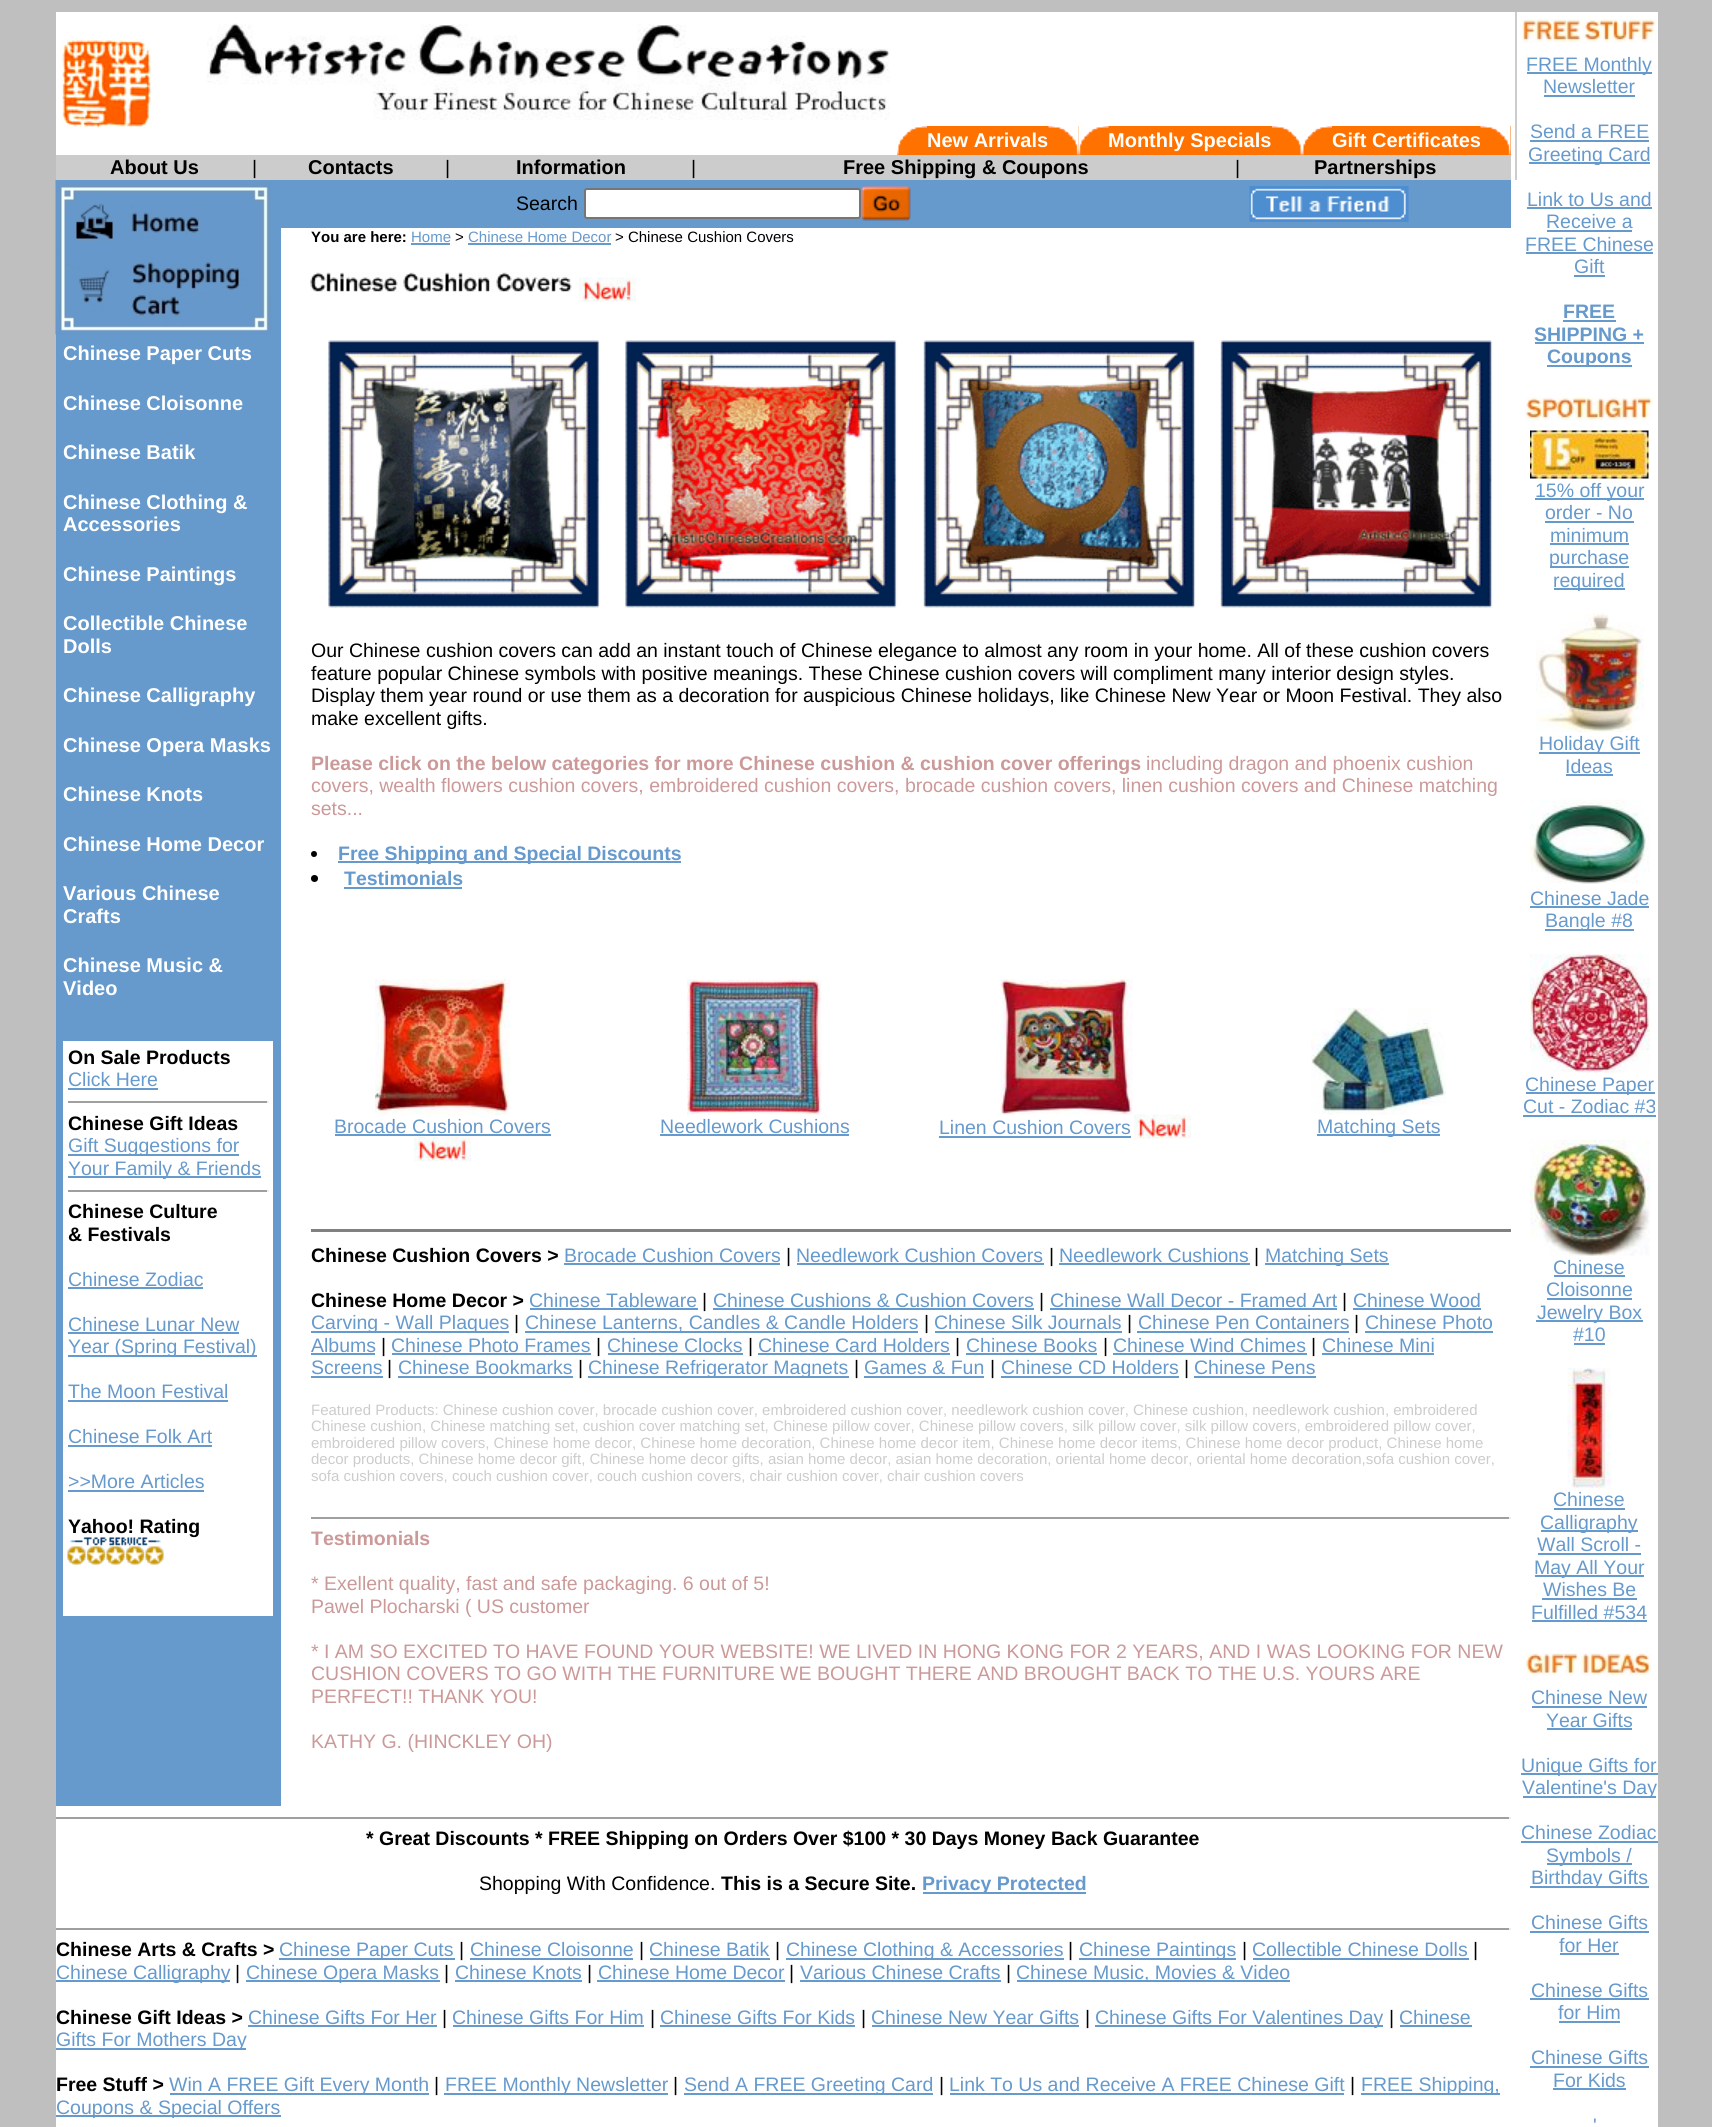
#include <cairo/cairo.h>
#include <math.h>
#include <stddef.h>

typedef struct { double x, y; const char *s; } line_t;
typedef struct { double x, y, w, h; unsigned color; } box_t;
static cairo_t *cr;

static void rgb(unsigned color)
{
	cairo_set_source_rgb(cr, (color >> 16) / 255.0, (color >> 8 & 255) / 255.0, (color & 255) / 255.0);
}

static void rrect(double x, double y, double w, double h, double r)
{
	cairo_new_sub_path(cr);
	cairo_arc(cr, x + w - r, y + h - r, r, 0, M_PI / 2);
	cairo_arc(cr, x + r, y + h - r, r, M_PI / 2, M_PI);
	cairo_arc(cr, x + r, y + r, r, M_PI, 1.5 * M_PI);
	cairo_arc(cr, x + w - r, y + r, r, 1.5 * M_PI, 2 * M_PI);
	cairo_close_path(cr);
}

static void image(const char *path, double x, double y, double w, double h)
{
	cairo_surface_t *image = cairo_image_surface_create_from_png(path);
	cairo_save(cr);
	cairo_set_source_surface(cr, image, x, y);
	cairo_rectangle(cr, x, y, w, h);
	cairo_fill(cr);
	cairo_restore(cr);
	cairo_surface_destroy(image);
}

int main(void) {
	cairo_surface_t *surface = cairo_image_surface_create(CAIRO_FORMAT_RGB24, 1712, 2127);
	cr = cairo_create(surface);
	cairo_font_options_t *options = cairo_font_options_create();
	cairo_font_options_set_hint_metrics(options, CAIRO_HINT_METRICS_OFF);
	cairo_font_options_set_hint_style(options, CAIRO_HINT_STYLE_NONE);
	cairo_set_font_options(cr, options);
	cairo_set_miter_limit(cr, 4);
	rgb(0xbfbfbf);
	cairo_paint(cr);
	{
		static const box_t items[] = {
			{56, 12, 1455, 143, 0xffffff},
			{1511, 12, 4, 168, 0xffffff},
			{1515, 12, 2, 168, 0xcccccc},
			{1517, 12, 141, 168, 0xffffff},
		};
		for (size_t i = 0; i < sizeof items / sizeof *items; i++) {
			rgb(items[i].color);
			cairo_rectangle(cr, items[i].x, items[i].y, items[i].w, items[i].h);
			cairo_fill(cr);
		}
	}
	image("img/1.png", 61, 39, 91, 89);
	image("img/2.png", 207, 23, 683, 97);
	rgb(0xff7200);
	cairo_rectangle(cr, 897, 126, 614, 29);
	cairo_fill(cr);
	image("img/3.png", 897, 126, 30, 29);
	image("img/4.png", 1048, 126, 31, 29);
	image("img/5.png", 1078, 126, 31, 29);
	image("img/6.png", 1272, 126, 30, 29);
	image("img/3.png", 1302, 126, 30, 29);
	image("img/4.png", 1480, 126, 31, 29);
	rgb(0xcccccc);
	cairo_rectangle(cr, 56, 155, 1455, 25);
	cairo_fill(cr);
	image("img/7.png", 1522, 19, 135, 24);
	{
		static const box_t items[] = {
			{1527, 72, 125, 2, 0x6699cc},
			{1544, 95, 91, 2, 0x6699cc},
			{1530, 140, 119, 2, 0x6699cc},
			{1529, 162, 121, 2, 0x6699cc},
			{281, 180, 1377, 1626, 0xffffff},
			{1527, 207, 125, 2, 0x6699cc},
			{1547, 230, 85, 2, 0x6699cc},
			{1526, 252, 127, 2, 0x6699cc},
			{1574, 275, 31, 2, 0x6699cc},
			{1563, 320, 53, 2, 0x6699cc},
			{1535, 342, 109, 2, 0x6699cc},
			{1547, 365, 85, 2, 0x6699cc},
		};
		for (size_t i = 0; i < sizeof items / sizeof *items; i++) {
			rgb(items[i].color);
			cairo_rectangle(cr, items[i].x, items[i].y, items[i].w, items[i].h);
			cairo_fill(cr);
		}
	}
	image("img/8.png", 1525, 397, 128, 24);
	image("img/9.png", 1530, 430, 119, 49);
	{
		static const box_t items[] = {
			{1535, 498, 109, 2, 0x6699cc},
			{1545, 521, 89, 2, 0x6699cc},
			{1550, 543, 79, 2, 0x6699cc},
			{1550, 566, 79, 2, 0x6699cc},
			{1554, 588, 71, 2, 0x6699cc},
		};
		for (size_t i = 0; i < sizeof items / sizeof *items; i++) {
			rgb(items[i].color);
			cairo_rectangle(cr, items[i].x, items[i].y, items[i].w, items[i].h);
			cairo_fill(cr);
		}
	}
	image("img/10.png", 1536, 613, 108, 119);
	cairo_rectangle(cr, 1539, 752, 101, 2);
	cairo_fill(cr);
	cairo_rectangle(cr, 1566, 774, 47, 2);
	cairo_fill(cr);
	image("img/11.png", 1530, 799, 120, 85);
	cairo_rectangle(cr, 1530, 906, 119, 2);
	cairo_fill(cr);
	cairo_rectangle(cr, 1545, 929, 89, 2);
	cairo_fill(cr);
	image("img/12.png", 1530, 954, 120, 119);
	cairo_rectangle(cr, 1526, 1092, 129, 2);
	cairo_fill(cr);
	cairo_rectangle(cr, 1523, 1115, 133, 2);
	cairo_fill(cr);
	image("img/13.png", 1530, 1140, 120, 116);
	{
		static const box_t items[] = {
			{1554, 1275, 71, 2, 0x6699cc},
			{1547, 1298, 85, 2, 0x6699cc},
			{1536, 1320, 107, 2, 0x6699cc},
			{1574, 1343, 31, 2, 0x6699cc},
		};
		for (size_t i = 0; i < sizeof items / sizeof *items; i++) {
			rgb(items[i].color);
			cairo_rectangle(cr, items[i].x, items[i].y, items[i].w, items[i].h);
			cairo_fill(cr);
		}
	}
	image("img/14.png", 1567, 1368, 44, 120);
	{
		static const box_t items[] = {
			{1554, 1508, 71, 2, 0x6699cc},
			{1541, 1530, 97, 2, 0x6699cc},
			{1538, 1553, 103, 2, 0x6699cc},
			{1535, 1575, 109, 2, 0x6699cc},
			{1542, 1598, 95, 2, 0x6699cc},
			{1532, 1620, 115, 2, 0x6699cc},
		};
		for (size_t i = 0; i < sizeof items / sizeof *items; i++) {
			rgb(items[i].color);
			cairo_rectangle(cr, items[i].x, items[i].y, items[i].w, items[i].h);
			cairo_fill(cr);
		}
	}
	image("img/15.png", 1525, 1653, 127, 23);
	{
		static const box_t items[] = {
			{1532, 1706, 115, 2, 0x6699cc},
			{1547, 1728, 85, 2, 0x6699cc},
			{1521, 1773, 137, 2, 0x6699cc},
			{1523, 1796, 133, 2, 0x6699cc},
			{56, 1806, 1602, 321, 0xffffff},
			{1521, 1841, 137, 2, 0x6699cc},
			{1547, 1863, 85, 2, 0x6699cc},
			{1530, 1886, 119, 2, 0x6699cc},
			{1530, 1931, 119, 2, 0x6699cc},
			{1560, 1953, 59, 2, 0x6699cc},
			{1530, 1998, 119, 2, 0x6699cc},
			{1559, 2021, 61, 2, 0x6699cc},
			{1530, 2066, 119, 2, 0x6699cc},
			{1553, 2088, 73, 2, 0x6699cc},
			{56, 180, 225, 1626, 0x6699cc},
		};
		for (size_t i = 0; i < sizeof items / sizeof *items; i++) {
			rgb(items[i].color);
			cairo_rectangle(cr, items[i].x, items[i].y, items[i].w, items[i].h);
			cairo_fill(cr);
		}
	}
	image("img/16.png", 55, 180, 216, 155);
	{
		static const box_t items[] = {
			{63, 1041, 210, 575, 0xffffff},
			{68, 1088, 90, 2, 0x6699cc},
			{68, 1101, 201, 2, 0x9f9f9f},
			{267, 1101, 2, 2, 0xeeeeee},
			{68, 1154, 171, 2, 0x6699cc},
			{68, 1176, 193, 2, 0x6699cc},
			{68, 1190, 201, 2, 0x9f9f9f},
			{267, 1190, 2, 2, 0xeeeeee},
			{68, 1287, 135, 2, 0x6699cc},
			{68, 1332, 171, 2, 0x6699cc},
			{68, 1355, 189, 2, 0x6699cc},
			{68, 1400, 160, 2, 0x6699cc},
			{68, 1445, 144, 2, 0x6699cc},
			{68, 1490, 136, 2, 0x6699cc},
			{281, 180, 1230, 48, 0x6699cc},
		};
		for (size_t i = 0; i < sizeof items / sizeof *items; i++) {
			rgb(items[i].color);
			cairo_rectangle(cr, items[i].x, items[i].y, items[i].w, items[i].h);
			cairo_fill(cr);
		}
	}
	rgb(0xffffff);
	rrect(585, 189, 275, 29, 2);
	cairo_fill_preserve(cr);
	rgb(0x767676);
	cairo_stroke(cr);
	image("img/18.png", 861, 186, 50, 35);
	image("img/19.png", 1249, 186, 160, 36);
	rgb(0x6699cc);
	cairo_rectangle(cr, 411, 243, 39, 2);
	cairo_fill(cr);
	cairo_rectangle(cr, 468, 243, 143, 2);
	cairo_fill(cr);
	image("img/20.png", 310, 272, 262, 20);
	image("img/21.png", 579, 277, 57, 25);
	image("img/22.png", 328, 340, 1165, 268);
	rgb(0x000000);
	cairo_arc(cr, 314, 854, 3, 0, 2 * M_PI);
	cairo_fill(cr);
	rgb(0x6699cc);
	cairo_rectangle(cr, 338, 861, 343, 2);
	cairo_fill(cr);
	rgb(0x000000);
	cairo_arc(cr, 314.5, 878.5, 3.5, 0, 2 * M_PI);
	cairo_fill(cr);
	rgb(0x6699cc);
	cairo_rectangle(cr, 344, 887, 118, 2);
	cairo_fill(cr);
	image("img/23.png", 375, 979, 135, 136);
	image("img/24.png", 687, 979, 135, 136);
	image("img/25.png", 1000, 979, 133, 136);
	image("img/26.png", 1311, 1008, 135, 107);
	cairo_rectangle(cr, 335, 1134, 216, 2);
	cairo_fill(cr);
	image("img/27.png", 414, 1137, 57, 25);
	cairo_rectangle(cr, 660, 1134, 189, 2);
	cairo_fill(cr);
	cairo_rectangle(cr, 939, 1136, 192, 2);
	cairo_fill(cr);
	image("img/21.png", 1134, 1114, 57, 25);
	{
		static const box_t items[] = {
			{1317, 1134, 123, 2, 0x6699cc},
			{311, 1229, 1200, 3, 0x808080},
			{564, 1263, 216, 2, 0x6699cc},
			{797, 1263, 247, 2, 0x6699cc},
			{1059, 1263, 191, 2, 0x6699cc},
			{1265, 1263, 124, 2, 0x6699cc},
			{530, 1308, 168, 2, 0x6699cc},
			{713, 1308, 321, 2, 0x6699cc},
			{1050, 1308, 287, 2, 0x6699cc},
			{1353, 1308, 128, 2, 0x6699cc},
			{311, 1331, 198, 2, 0x6699cc},
			{525, 1331, 393, 2, 0x6699cc},
			{935, 1331, 187, 2, 0x6699cc},
			{1137, 1331, 212, 2, 0x6699cc},
			{1365, 1331, 128, 2, 0x6699cc},
			{311, 1353, 64, 2, 0x6699cc},
			{392, 1353, 199, 2, 0x6699cc},
			{608, 1353, 135, 2, 0x6699cc},
			{758, 1353, 192, 2, 0x6699cc},
			{966, 1353, 131, 2, 0x6699cc},
			{1113, 1353, 194, 2, 0x6699cc},
			{1322, 1353, 112, 2, 0x6699cc},
			{311, 1376, 72, 2, 0x6699cc},
			{398, 1376, 175, 2, 0x6699cc},
			{588, 1376, 261, 2, 0x6699cc},
			{864, 1376, 120, 2, 0x6699cc},
			{1001, 1376, 178, 2, 0x6699cc},
			{1194, 1376, 122, 2, 0x6699cc},
			{311, 1517, 1200, 2, 0x9f9f9f},
			{1509, 1517, 2, 2, 0xeeeeee},
			{56, 1817, 1455, 2, 0x9f9f9f},
			{1509, 1817, 2, 2, 0xeeeeee},
			{923, 1892, 163, 2, 0x6699cc},
			{56, 1928, 1455, 2, 0x9f9f9f},
			{1509, 1928, 2, 2, 0xeeeeee},
			{279, 1958, 176, 2, 0x6699cc},
			{470, 1958, 163, 2, 0x6699cc},
			{650, 1958, 120, 2, 0x6699cc},
			{786, 1958, 278, 2, 0x6699cc},
			{1079, 1958, 157, 2, 0x6699cc},
			{1253, 1958, 216, 2, 0x6699cc},
			{56, 1980, 174, 2, 0x6699cc},
			{246, 1980, 194, 2, 0x6699cc},
			{455, 1980, 127, 2, 0x6699cc},
			{597, 1980, 188, 2, 0x6699cc},
			{800, 1980, 201, 2, 0x6699cc},
			{1017, 1980, 273, 2, 0x6699cc},
			{248, 2025, 189, 2, 0x6699cc},
			{453, 2025, 191, 2, 0x6699cc},
			{660, 2025, 195, 2, 0x6699cc},
			{872, 2025, 207, 2, 0x6699cc},
			{1095, 2025, 288, 2, 0x6699cc},
			{1400, 2025, 72, 2, 0x6699cc},
			{56, 2048, 190, 2, 0x6699cc},
			{170, 2093, 259, 2, 0x6699cc},
			{444, 2093, 224, 2, 0x6699cc},
			{684, 2093, 249, 2, 0x6699cc},
			{950, 2093, 394, 2, 0x6699cc},
			{1361, 2093, 139, 2, 0x6699cc},
			{56, 2115, 225, 2, 0x6699cc},
		};
		for (size_t i = 0; i < sizeof items / sizeof *items; i++) {
			rgb(items[i].color);
			cairo_rectangle(cr, items[i].x, items[i].y, items[i].w, items[i].h);
			cairo_fill(cr);
		}
	}
	cairo_select_font_face(cr, "Liberation Sans", CAIRO_FONT_SLANT_NORMAL, CAIRO_FONT_WEIGHT_BOLD);
	cairo_set_font_size(cr, 20);
	rgb(0xffffff);
	{
		static const line_t items[] = {
			{927, 147, "New Arrivals"},
			{1108, 147, "Monthly Specials"},
			{1332, 147, "Gift Certificates"},
		};
		for (size_t i = 0; i < sizeof items / sizeof *items; i++) {
			cairo_move_to(cr, items[i].x, items[i].y);
			cairo_show_text(cr, items[i].s);
		}
	}
	rgb(0x000000);
	cairo_move_to(cr, 110, 174);
	cairo_show_text(cr, "About Us");
	cairo_select_font_face(cr, "Liberation Sans", CAIRO_FONT_SLANT_NORMAL, CAIRO_FONT_WEIGHT_NORMAL);
	cairo_set_font_size(cr, 19.5);
	cairo_move_to(cr, 252, 174);
	cairo_show_text(cr, "|");
	cairo_select_font_face(cr, "Liberation Sans", CAIRO_FONT_SLANT_NORMAL, CAIRO_FONT_WEIGHT_BOLD);
	cairo_set_font_size(cr, 20);
	cairo_move_to(cr, 308, 174);
	cairo_show_text(cr, "Contacts");
	cairo_select_font_face(cr, "Liberation Sans", CAIRO_FONT_SLANT_NORMAL, CAIRO_FONT_WEIGHT_NORMAL);
	cairo_set_font_size(cr, 19.5);
	cairo_move_to(cr, 445, 174);
	cairo_show_text(cr, "|");
	cairo_select_font_face(cr, "Liberation Sans", CAIRO_FONT_SLANT_NORMAL, CAIRO_FONT_WEIGHT_BOLD);
	cairo_set_font_size(cr, 20);
	cairo_move_to(cr, 516, 174);
	cairo_show_text(cr, "Information");
	cairo_select_font_face(cr, "Liberation Sans", CAIRO_FONT_SLANT_NORMAL, CAIRO_FONT_WEIGHT_NORMAL);
	cairo_set_font_size(cr, 19.5);
	cairo_move_to(cr, 691, 174);
	cairo_show_text(cr, "|");
	cairo_select_font_face(cr, "Liberation Sans", CAIRO_FONT_SLANT_NORMAL, CAIRO_FONT_WEIGHT_BOLD);
	cairo_set_font_size(cr, 20);
	cairo_move_to(cr, 843, 174);
	cairo_show_text(cr, "Free Shipping & Coupons");
	cairo_select_font_face(cr, "Liberation Sans", CAIRO_FONT_SLANT_NORMAL, CAIRO_FONT_WEIGHT_NORMAL);
	cairo_set_font_size(cr, 19.5);
	cairo_move_to(cr, 1235, 174);
	cairo_show_text(cr, "|");
	cairo_select_font_face(cr, "Liberation Sans", CAIRO_FONT_SLANT_NORMAL, CAIRO_FONT_WEIGHT_BOLD);
	cairo_set_font_size(cr, 20);
	cairo_move_to(cr, 1314, 174);
	cairo_show_text(cr, "Partnerships");
	cairo_select_font_face(cr, "Liberation Sans", CAIRO_FONT_SLANT_NORMAL, CAIRO_FONT_WEIGHT_NORMAL);
	cairo_set_font_size(cr, 19.5);
	rgb(0x6699cc);
	{
		static const line_t items[] = {
			{1526, 71, "FREE Monthly"},
			{1543, 93, "Newsletter"},
			{1530, 138, "Send a FREE"},
			{1528, 161, "Greeting Card"},
			{1527, 206, "Link to Us and"},
			{1546, 228, "Receive a"},
			{1525, 251, "FREE Chinese"},
			{1574, 273, "Gift"},
		};
		for (size_t i = 0; i < sizeof items / sizeof *items; i++) {
			cairo_move_to(cr, items[i].x, items[i].y);
			cairo_show_text(cr, items[i].s);
		}
	}
	cairo_select_font_face(cr, "Liberation Sans", CAIRO_FONT_SLANT_NORMAL, CAIRO_FONT_WEIGHT_BOLD);
	{
		static const line_t items[] = {
			{1563, 318, "FREE"},
			{1534, 341, "SHIPPING +"},
			{1547, 363, "Coupons"},
		};
		for (size_t i = 0; i < sizeof items / sizeof *items; i++) {
			cairo_move_to(cr, items[i].x, items[i].y);
			cairo_show_text(cr, items[i].s);
		}
	}
	cairo_select_font_face(cr, "Liberation Sans", CAIRO_FONT_SLANT_NORMAL, CAIRO_FONT_WEIGHT_NORMAL);
	{
		static const line_t items[] = {
			{1535, 497, "15% off your"},
			{1545, 519, "order - No"},
			{1550, 542, "minimum"},
			{1549, 564, "purchase"},
			{1553, 587, "required"},
			{1539, 750, "Holiday Gift"},
			{1565, 773, "Ideas"},
			{1530, 905, "Chinese Jade"},
			{1545, 927, "Bangle #8"},
			{1525, 1091, "Chinese Paper"},
			{1523, 1113, "Cut - Zodiac #3"},
			{1553, 1274, "Chinese"},
			{1546, 1296, "Cloisonne"},
			{1537, 1319, "Jewelry Box"},
			{1573, 1341, "#10"},
			{1553, 1506, "Chinese"},
			{1540, 1529, "Calligraphy"},
			{1537, 1551, "Wall Scroll -"},
			{1534, 1574, "May All Your"},
			{1543, 1596, "Wishes Be"},
			{1531, 1619, "Fulfilled #534"},
			{1531, 1704, "Chinese New"},
			{1546, 1727, "Year Gifts"},
			{1521, 1772, "Unique Gifts for"},
			{1522, 1794, "Valentine's Day"},
			{1521, 1839, "Chinese Zodiac"},
			{1546, 1862, "Symbols /"},
			{1531, 1884, "Birthday Gifts"},
			{1531, 1929, "Chinese Gifts"},
			{1559, 1952, "for Her"},
			{1531, 1997, "Chinese Gifts"},
			{1558, 2019, "for Him"},
			{1531, 2064, "Chinese Gifts"},
			{1553, 2087, "For Kids"},
			{1593, 2132, "'"},
		};
		for (size_t i = 0; i < sizeof items / sizeof *items; i++) {
			cairo_move_to(cr, items[i].x, items[i].y);
			cairo_show_text(cr, items[i].s);
		}
	}
	cairo_select_font_face(cr, "Liberation Sans", CAIRO_FONT_SLANT_NORMAL, CAIRO_FONT_WEIGHT_BOLD);
	cairo_set_font_size(cr, 20);
	rgb(0xffffff);
	{
		static const line_t items[] = {
			{63, 360, "Chinese Paper Cuts"},
			{63, 410, "Chinese Cloisonne"},
			{63, 459, "Chinese Batik"},
			{63, 509, "Chinese Clothing &"},
			{63, 531, "Accessories"},
			{63, 581, "Chinese Paintings"},
			{63, 630, "Collectible Chinese"},
			{63, 653, "Dolls"},
			{63, 702, "Chinese Calligraphy"},
			{63, 752, "Chinese Opera Masks"},
			{63, 801, "Chinese Knots"},
			{63, 851, "Chinese Home Decor"},
			{63, 900, "Various Chinese"},
			{63, 923, "Crafts"},
			{63, 972, "Chinese Music &"},
			{63, 995, "Video"},
		};
		for (size_t i = 0; i < sizeof items / sizeof *items; i++) {
			cairo_move_to(cr, items[i].x, items[i].y);
			cairo_show_text(cr, items[i].s);
		}
	}
	cairo_set_font_size(cr, 19.5);
	rgb(0x000000);
	cairo_move_to(cr, 68, 1064);
	cairo_show_text(cr, "On Sale Products");
	cairo_select_font_face(cr, "Liberation Sans", CAIRO_FONT_SLANT_NORMAL, CAIRO_FONT_WEIGHT_NORMAL);
	rgb(0x6699cc);
	cairo_move_to(cr, 68, 1086);
	cairo_show_text(cr, "Click Here");
	cairo_select_font_face(cr, "Liberation Sans", CAIRO_FONT_SLANT_NORMAL, CAIRO_FONT_WEIGHT_BOLD);
	rgb(0x000000);
	cairo_move_to(cr, 68, 1130);
	cairo_show_text(cr, "Chinese Gift Ideas");
	cairo_select_font_face(cr, "Liberation Sans", CAIRO_FONT_SLANT_NORMAL, CAIRO_FONT_WEIGHT_NORMAL);
	rgb(0x6699cc);
	cairo_move_to(cr, 68, 1152);
	cairo_show_text(cr, "Gift Suggestions for");
	cairo_move_to(cr, 68, 1175);
	cairo_show_text(cr, "Your Family & Friends");
	cairo_select_font_face(cr, "Liberation Sans", CAIRO_FONT_SLANT_NORMAL, CAIRO_FONT_WEIGHT_BOLD);
	rgb(0x000000);
	cairo_move_to(cr, 68, 1218);
	cairo_show_text(cr, "Chinese Culture");
	cairo_move_to(cr, 68, 1241);
	cairo_show_text(cr, "& Festivals");
	cairo_select_font_face(cr, "Liberation Sans", CAIRO_FONT_SLANT_NORMAL, CAIRO_FONT_WEIGHT_NORMAL);
	rgb(0x6699cc);
	{
		static const line_t items[] = {
			{68, 1286, "Chinese Zodiac"},
			{68, 1331, "Chinese Lunar New"},
			{68, 1353, "Year (Spring Festival)"},
			{68, 1398, "The Moon Festival"},
			{68, 1443, "Chinese Folk Art"},
			{68, 1488, ">>More Articles"},
		};
		for (size_t i = 0; i < sizeof items / sizeof *items; i++) {
			cairo_move_to(cr, items[i].x, items[i].y);
			cairo_show_text(cr, items[i].s);
		}
	}
	cairo_select_font_face(cr, "Liberation Sans", CAIRO_FONT_SLANT_NORMAL, CAIRO_FONT_WEIGHT_BOLD);
	rgb(0x000000);
	cairo_move_to(cr, 68, 1533);
	cairo_show_text(cr, "Yahoo! Rating");
	image("img/17.png", 67, 1537, 97, 28);
	cairo_select_font_face(cr, "Liberation Sans", CAIRO_FONT_SLANT_NORMAL, CAIRO_FONT_WEIGHT_NORMAL);
	cairo_move_to(cr, 516, 210);
	cairo_show_text(cr, "Search");
	cairo_select_font_face(cr, "Liberation Sans", CAIRO_FONT_SLANT_NORMAL, CAIRO_FONT_WEIGHT_BOLD);
	cairo_set_font_size(cr, 15);
	cairo_move_to(cr, 311, 242);
	cairo_show_text(cr, "You are here:");
	cairo_select_font_face(cr, "Liberation Sans", CAIRO_FONT_SLANT_NORMAL, CAIRO_FONT_WEIGHT_NORMAL);
	rgb(0x6699cc);
	cairo_move_to(cr, 411, 242);
	cairo_show_text(cr, "Home");
	rgb(0x000000);
	cairo_move_to(cr, 455, 242);
	cairo_show_text(cr, ">");
	rgb(0x6699cc);
	cairo_move_to(cr, 468, 242);
	cairo_show_text(cr, "Chinese Home Decor");
	rgb(0x000000);
	cairo_move_to(cr, 615, 242);
	cairo_show_text(cr, "> Chinese Cushion Covers");
	cairo_set_font_size(cr, 19.5);
	{
		static const line_t items[] = {
			{311, 657, "Our Chinese cushion covers can add an instant touch of Chinese elegance to almost any room in your home. All of these cushion covers"},
			{311, 680, "feature popular Chinese symbols with positive meanings. These Chinese cushion covers will compliment many interior design styles."},
			{311, 702, "Display them year round or use them as a decoration for auspicious Chinese holidays, like Chinese New Year or Moon Festival. They also"},
			{311, 725, "make excellent gifts."},
		};
		for (size_t i = 0; i < sizeof items / sizeof *items; i++) {
			cairo_move_to(cr, items[i].x, items[i].y);
			cairo_show_text(cr, items[i].s);
		}
	}
	cairo_select_font_face(cr, "Liberation Sans", CAIRO_FONT_SLANT_NORMAL, CAIRO_FONT_WEIGHT_BOLD);
	rgb(0xcc9999);
	cairo_move_to(cr, 311, 770);
	cairo_show_text(cr, "Please click on the below categories for more Chinese cushion & cushion cover offerings");
	cairo_select_font_face(cr, "Liberation Sans", CAIRO_FONT_SLANT_NORMAL, CAIRO_FONT_WEIGHT_NORMAL);
	{
		static const line_t items[] = {
			{1146, 770, "including dragon and phoenix cushion"},
			{311, 792, "covers, wealth flowers cushion covers, embroidered cushion covers, brocade cushion covers, linen cushion covers and Chinese matching"},
			{311, 815, "sets..."},
		};
		for (size_t i = 0; i < sizeof items / sizeof *items; i++) {
			cairo_move_to(cr, items[i].x, items[i].y);
			cairo_show_text(cr, items[i].s);
		}
	}
	cairo_select_font_face(cr, "Liberation Sans", CAIRO_FONT_SLANT_NORMAL, CAIRO_FONT_WEIGHT_BOLD);
	rgb(0x6699cc);
	cairo_move_to(cr, 338, 860);
	cairo_show_text(cr, "Free Shipping and Special Discounts");
	cairo_move_to(cr, 344, 885);
	cairo_show_text(cr, "Testimonials");
	cairo_select_font_face(cr, "Liberation Sans", CAIRO_FONT_SLANT_NORMAL, CAIRO_FONT_WEIGHT_NORMAL);
	{
		static const line_t items[] = {
			{334, 1133, "Brocade Cushion Covers"},
			{660, 1133, "Needlework Cushions"},
			{939, 1134, "Linen Cushion Covers"},
			{1317, 1133, "Matching Sets"},
		};
		for (size_t i = 0; i < sizeof items / sizeof *items; i++) {
			cairo_move_to(cr, items[i].x, items[i].y);
			cairo_show_text(cr, items[i].s);
		}
	}
	cairo_select_font_face(cr, "Liberation Sans", CAIRO_FONT_SLANT_NORMAL, CAIRO_FONT_WEIGHT_BOLD);
	rgb(0x000000);
	cairo_move_to(cr, 311, 1262);
	cairo_show_text(cr, "Chinese Cushion Covers >");
	cairo_select_font_face(cr, "Liberation Sans", CAIRO_FONT_SLANT_NORMAL, CAIRO_FONT_WEIGHT_NORMAL);
	rgb(0x6699cc);
	cairo_move_to(cr, 564, 1262);
	cairo_show_text(cr, "Brocade Cushion Covers");
	rgb(0x000000);
	cairo_move_to(cr, 786, 1262);
	cairo_show_text(cr, "|");
	rgb(0x6699cc);
	cairo_move_to(cr, 796, 1262);
	cairo_show_text(cr, "Needlework Cushion Covers");
	rgb(0x000000);
	cairo_move_to(cr, 1049, 1262);
	cairo_show_text(cr, "|");
	rgb(0x6699cc);
	cairo_move_to(cr, 1059, 1262);
	cairo_show_text(cr, "Needlework Cushions");
	rgb(0x000000);
	cairo_move_to(cr, 1254, 1262);
	cairo_show_text(cr, "|");
	rgb(0x6699cc);
	cairo_move_to(cr, 1265, 1262);
	cairo_show_text(cr, "Matching Sets");
	cairo_select_font_face(cr, "Liberation Sans", CAIRO_FONT_SLANT_NORMAL, CAIRO_FONT_WEIGHT_BOLD);
	rgb(0x000000);
	cairo_move_to(cr, 311, 1307);
	cairo_show_text(cr, "Chinese Home Decor >");
	cairo_select_font_face(cr, "Liberation Sans", CAIRO_FONT_SLANT_NORMAL, CAIRO_FONT_WEIGHT_NORMAL);
	rgb(0x6699cc);
	cairo_move_to(cr, 529, 1307);
	cairo_show_text(cr, "Chinese Tableware");
	rgb(0x000000);
	cairo_move_to(cr, 702, 1307);
	cairo_show_text(cr, "|");
	rgb(0x6699cc);
	cairo_move_to(cr, 713, 1307);
	cairo_show_text(cr, "Chinese Cushions & Cushion Covers");
	rgb(0x000000);
	cairo_move_to(cr, 1039, 1307);
	cairo_show_text(cr, "|");
	rgb(0x6699cc);
	cairo_move_to(cr, 1050, 1307);
	cairo_show_text(cr, "Chinese Wall Decor - Framed Art");
	rgb(0x000000);
	cairo_move_to(cr, 1342, 1307);
	cairo_show_text(cr, "|");
	rgb(0x6699cc);
	cairo_move_to(cr, 1353, 1307);
	cairo_show_text(cr, "Chinese Wood");
	cairo_move_to(cr, 311, 1329);
	cairo_show_text(cr, "Carving - Wall Plaques");
	rgb(0x000000);
	cairo_move_to(cr, 514, 1329);
	cairo_show_text(cr, "|");
	rgb(0x6699cc);
	cairo_move_to(cr, 525, 1329);
	cairo_show_text(cr, "Chinese Lanterns, Candles & Candle Holders");
	rgb(0x000000);
	cairo_move_to(cr, 924, 1329);
	cairo_show_text(cr, "|");
	rgb(0x6699cc);
	cairo_move_to(cr, 934, 1329);
	cairo_show_text(cr, "Chinese Silk Journals");
	rgb(0x000000);
	cairo_move_to(cr, 1127, 1329);
	cairo_show_text(cr, "|");
	rgb(0x6699cc);
	cairo_move_to(cr, 1138, 1329);
	cairo_show_text(cr, "Chinese Pen Containers");
	rgb(0x000000);
	cairo_move_to(cr, 1354, 1329);
	cairo_show_text(cr, "|");
	rgb(0x6699cc);
	cairo_move_to(cr, 1365, 1329);
	cairo_show_text(cr, "Chinese Photo");
	cairo_move_to(cr, 311, 1352);
	cairo_show_text(cr, "Albums");
	rgb(0x000000);
	cairo_move_to(cr, 381, 1352);
	cairo_show_text(cr, "|");
	rgb(0x6699cc);
	cairo_move_to(cr, 391, 1352);
	cairo_show_text(cr, "Chinese Photo Frames");
	rgb(0x000000);
	cairo_move_to(cr, 596, 1352);
	cairo_show_text(cr, "|");
	rgb(0x6699cc);
	cairo_move_to(cr, 607, 1352);
	cairo_show_text(cr, "Chinese Clocks");
	rgb(0x000000);
	cairo_move_to(cr, 748, 1352);
	cairo_show_text(cr, "|");
	rgb(0x6699cc);
	cairo_move_to(cr, 758, 1352);
	cairo_show_text(cr, "Chinese Card Holders");
	rgb(0x000000);
	cairo_move_to(cr, 955, 1352);
	cairo_show_text(cr, "|");
	rgb(0x6699cc);
	cairo_move_to(cr, 966, 1352);
	cairo_show_text(cr, "Chinese Books");
	rgb(0x000000);
	cairo_move_to(cr, 1103, 1352);
	cairo_show_text(cr, "|");
	rgb(0x6699cc);
	cairo_move_to(cr, 1113, 1352);
	cairo_show_text(cr, "Chinese Wind Chimes");
	rgb(0x000000);
	cairo_move_to(cr, 1311, 1352);
	cairo_show_text(cr, "|");
	rgb(0x6699cc);
	cairo_move_to(cr, 1322, 1352);
	cairo_show_text(cr, "Chinese Mini");
	cairo_move_to(cr, 311, 1374);
	cairo_show_text(cr, "Screens");
	rgb(0x000000);
	cairo_move_to(cr, 387, 1374);
	cairo_show_text(cr, "|");
	rgb(0x6699cc);
	cairo_move_to(cr, 398, 1374);
	cairo_show_text(cr, "Chinese Bookmarks");
	rgb(0x000000);
	cairo_move_to(cr, 578, 1374);
	cairo_show_text(cr, "|");
	rgb(0x6699cc);
	cairo_move_to(cr, 588, 1374);
	cairo_show_text(cr, "Chinese Refrigerator Magnets");
	rgb(0x000000);
	cairo_move_to(cr, 854, 1374);
	cairo_show_text(cr, "|");
	rgb(0x6699cc);
	cairo_move_to(cr, 864, 1374);
	cairo_show_text(cr, "Games & Fun");
	rgb(0x000000);
	cairo_move_to(cr, 990, 1374);
	cairo_show_text(cr, "|");
	rgb(0x6699cc);
	cairo_move_to(cr, 1001, 1374);
	cairo_show_text(cr, "Chinese CD Holders");
	rgb(0x000000);
	cairo_move_to(cr, 1184, 1374);
	cairo_show_text(cr, "|");
	rgb(0x6699cc);
	cairo_move_to(cr, 1194, 1374);
	cairo_show_text(cr, "Chinese Pens");
	cairo_set_font_size(cr, 15);
	rgb(0xcccccc);
	{
		static const line_t items[] = {
			{311, 1415, "Featured Products: Chinese cushion cover, brocade cushion cover, embroidered cushion cover, needlework cushion cover, Chinese cushion, needlework cushion, embroidered"},
			{311, 1431, "Chinese cushion, Chinese matching set, cushion cover matching set, Chinese pillow cover, Chinese pillow covers, silk pillow cover, silk pillow covers, embroidered pillow cover,"},
			{311, 1448, "embroidered pillow covers, Chinese home decor, Chinese home decoration, Chinese home decor item, Chinese home decor items, Chinese home decor product, Chinese home"},
			{311, 1464, "decor products, Chinese home decor gift, Chinese home decor gifts, asian home decor, asian home decoration, oriental home decor, oriental home decoration,sofa cushion cover,"},
			{311, 1481, "sofa cushion covers, couch cushion cover, couch cushion covers, chair cushion cover, chair cushion covers"},
		};
		for (size_t i = 0; i < sizeof items / sizeof *items; i++) {
			cairo_move_to(cr, items[i].x, items[i].y);
			cairo_show_text(cr, items[i].s);
		}
	}
	cairo_select_font_face(cr, "Liberation Sans", CAIRO_FONT_SLANT_NORMAL, CAIRO_FONT_WEIGHT_BOLD);
	cairo_set_font_size(cr, 19.5);
	rgb(0xcc9999);
	cairo_move_to(cr, 311, 1545);
	cairo_show_text(cr, "Testimonials");
	cairo_select_font_face(cr, "Liberation Sans", CAIRO_FONT_SLANT_NORMAL, CAIRO_FONT_WEIGHT_NORMAL);
	{
		static const line_t items[] = {
			{311, 1590, "* Exellent quality, fast and safe packaging. 6 out of 5!"},
			{311, 1613, "Pawel Plocharski ( US customer"},
			{311, 1658, "* I AM SO EXCITED TO HAVE FOUND YOUR WEBSITE! WE LIVED IN HONG KONG FOR 2 YEARS, AND I WAS LOOKING FOR NEW"},
			{311, 1680, "CUSHION COVERS TO GO WITH THE FURNITURE WE BOUGHT THERE AND BROUGHT BACK TO THE U.S. YOURS ARE"},
			{311, 1703, "PERFECT!! THANK YOU!"},
			{311, 1748, "KATHY G. (HINCKLEY OH)"},
		};
		for (size_t i = 0; i < sizeof items / sizeof *items; i++) {
			cairo_move_to(cr, items[i].x, items[i].y);
			cairo_show_text(cr, items[i].s);
		}
	}
	cairo_select_font_face(cr, "Liberation Sans", CAIRO_FONT_SLANT_NORMAL, CAIRO_FONT_WEIGHT_BOLD);
	rgb(0x000000);
	cairo_move_to(cr, 366, 1845);
	cairo_show_text(cr, "* Great Discounts * FREE Shipping on Orders Over $100 * 30 Days Money Back Guarantee");
	cairo_select_font_face(cr, "Liberation Sans", CAIRO_FONT_SLANT_NORMAL, CAIRO_FONT_WEIGHT_NORMAL);
	cairo_move_to(cr, 479, 1890);
	cairo_show_text(cr, "Shopping With Confidence.");
	cairo_select_font_face(cr, "Liberation Sans", CAIRO_FONT_SLANT_NORMAL, CAIRO_FONT_WEIGHT_BOLD);
	cairo_move_to(cr, 721, 1890);
	cairo_show_text(cr, "This is a Secure Site.");
	rgb(0x6699cc);
	cairo_move_to(cr, 922, 1890);
	cairo_show_text(cr, "Privacy Protected");
	rgb(0x000000);
	cairo_move_to(cr, 56, 1956);
	cairo_show_text(cr, "Chinese Arts & Crafts >");
	cairo_select_font_face(cr, "Liberation Sans", CAIRO_FONT_SLANT_NORMAL, CAIRO_FONT_WEIGHT_NORMAL);
	rgb(0x6699cc);
	cairo_move_to(cr, 279, 1956);
	cairo_show_text(cr, "Chinese Paper Cuts");
	rgb(0x000000);
	cairo_move_to(cr, 459, 1956);
	cairo_show_text(cr, "|");
	rgb(0x6699cc);
	cairo_move_to(cr, 470, 1956);
	cairo_show_text(cr, "Chinese Cloisonne");
	rgb(0x000000);
	cairo_move_to(cr, 639, 1956);
	cairo_show_text(cr, "|");
	rgb(0x6699cc);
	cairo_move_to(cr, 649, 1956);
	cairo_show_text(cr, "Chinese Batik");
	rgb(0x000000);
	cairo_move_to(cr, 775, 1956);
	cairo_show_text(cr, "|");
	rgb(0x6699cc);
	cairo_move_to(cr, 786, 1956);
	cairo_show_text(cr, "Chinese Clothing & Accessories");
	rgb(0x000000);
	cairo_move_to(cr, 1068, 1956);
	cairo_show_text(cr, "|");
	rgb(0x6699cc);
	cairo_move_to(cr, 1079, 1956);
	cairo_show_text(cr, "Chinese Paintings");
	rgb(0x000000);
	cairo_move_to(cr, 1242, 1956);
	cairo_show_text(cr, "|");
	rgb(0x6699cc);
	cairo_move_to(cr, 1252, 1956);
	cairo_show_text(cr, "Collectible Chinese Dolls");
	rgb(0x000000);
	cairo_move_to(cr, 1473, 1956);
	cairo_show_text(cr, "|");
	rgb(0x6699cc);
	cairo_move_to(cr, 56, 1979);
	cairo_show_text(cr, "Chinese Calligraphy");
	rgb(0x000000);
	cairo_move_to(cr, 235, 1979);
	cairo_show_text(cr, "|");
	rgb(0x6699cc);
	cairo_move_to(cr, 246, 1979);
	cairo_show_text(cr, "Chinese Opera Masks");
	rgb(0x000000);
	cairo_move_to(cr, 444, 1979);
	cairo_show_text(cr, "|");
	rgb(0x6699cc);
	cairo_move_to(cr, 455, 1979);
	cairo_show_text(cr, "Chinese Knots");
	rgb(0x000000);
	cairo_move_to(cr, 587, 1979);
	cairo_show_text(cr, "|");
	rgb(0x6699cc);
	cairo_move_to(cr, 598, 1979);
	cairo_show_text(cr, "Chinese Home Decor");
	rgb(0x000000);
	cairo_move_to(cr, 789, 1979);
	cairo_show_text(cr, "|");
	rgb(0x6699cc);
	cairo_move_to(cr, 800, 1979);
	cairo_show_text(cr, "Various Chinese Crafts");
	rgb(0x000000);
	cairo_move_to(cr, 1006, 1979);
	cairo_show_text(cr, "|");
	rgb(0x6699cc);
	cairo_move_to(cr, 1016, 1979);
	cairo_show_text(cr, "Chinese Music, Movies & Video");
	cairo_select_font_face(cr, "Liberation Sans", CAIRO_FONT_SLANT_NORMAL, CAIRO_FONT_WEIGHT_BOLD);
	rgb(0x000000);
	cairo_move_to(cr, 56, 2024);
	cairo_show_text(cr, "Chinese Gift Ideas >");
	cairo_select_font_face(cr, "Liberation Sans", CAIRO_FONT_SLANT_NORMAL, CAIRO_FONT_WEIGHT_NORMAL);
	rgb(0x6699cc);
	cairo_move_to(cr, 248, 2024);
	cairo_show_text(cr, "Chinese Gifts For Her");
	rgb(0x000000);
	cairo_move_to(cr, 442, 2024);
	cairo_show_text(cr, "|");
	rgb(0x6699cc);
	cairo_move_to(cr, 452, 2024);
	cairo_show_text(cr, "Chinese Gifts For Him");
	rgb(0x000000);
	cairo_move_to(cr, 650, 2024);
	cairo_show_text(cr, "|");
	rgb(0x6699cc);
	cairo_move_to(cr, 660, 2024);
	cairo_show_text(cr, "Chinese Gifts For Kids");
	rgb(0x000000);
	cairo_move_to(cr, 861, 2024);
	cairo_show_text(cr, "|");
	rgb(0x6699cc);
	cairo_move_to(cr, 871, 2024);
	cairo_show_text(cr, "Chinese New Year Gifts");
	rgb(0x000000);
	cairo_move_to(cr, 1085, 2024);
	cairo_show_text(cr, "|");
	rgb(0x6699cc);
	cairo_move_to(cr, 1095, 2024);
	cairo_show_text(cr, "Chinese Gifts For Valentines Day");
	rgb(0x000000);
	cairo_move_to(cr, 1389, 2024);
	cairo_show_text(cr, "|");
	rgb(0x6699cc);
	cairo_move_to(cr, 1399, 2024);
	cairo_show_text(cr, "Chinese");
	cairo_move_to(cr, 56, 2046);
	cairo_show_text(cr, "Gifts For Mothers Day");
	cairo_select_font_face(cr, "Liberation Sans", CAIRO_FONT_SLANT_NORMAL, CAIRO_FONT_WEIGHT_BOLD);
	rgb(0x000000);
	cairo_move_to(cr, 56, 2091);
	cairo_show_text(cr, "Free Stuff >");
	cairo_select_font_face(cr, "Liberation Sans", CAIRO_FONT_SLANT_NORMAL, CAIRO_FONT_WEIGHT_NORMAL);
	rgb(0x6699cc);
	cairo_move_to(cr, 169, 2091);
	cairo_show_text(cr, "Win A FREE Gift Every Month");
	rgb(0x000000);
	cairo_move_to(cr, 434, 2091);
	cairo_show_text(cr, "|");
	rgb(0x6699cc);
	cairo_move_to(cr, 445, 2091);
	cairo_show_text(cr, "FREE Monthly Newsletter");
	rgb(0x000000);
	cairo_move_to(cr, 673, 2091);
	cairo_show_text(cr, "|");
	rgb(0x6699cc);
	cairo_move_to(cr, 684, 2091);
	cairo_show_text(cr, "Send A FREE Greeting Card");
	rgb(0x000000);
	cairo_move_to(cr, 939, 2091);
	cairo_show_text(cr, "|");
	rgb(0x6699cc);
	cairo_move_to(cr, 949, 2091);
	cairo_show_text(cr, "Link To Us and Receive A FREE Chinese Gift");
	rgb(0x000000);
	cairo_move_to(cr, 1350, 2091);
	cairo_show_text(cr, "|");
	rgb(0x6699cc);
	cairo_move_to(cr, 1361, 2091);
	cairo_show_text(cr, "FREE Shipping,");
	cairo_move_to(cr, 56, 2114);
	cairo_show_text(cr, "Coupons & Special Offers");
	cairo_surface_write_to_png(surface, "page.png");
	cairo_font_options_destroy(options);
	cairo_destroy(cr);
	cairo_surface_destroy(surface);
	return 0;
}
